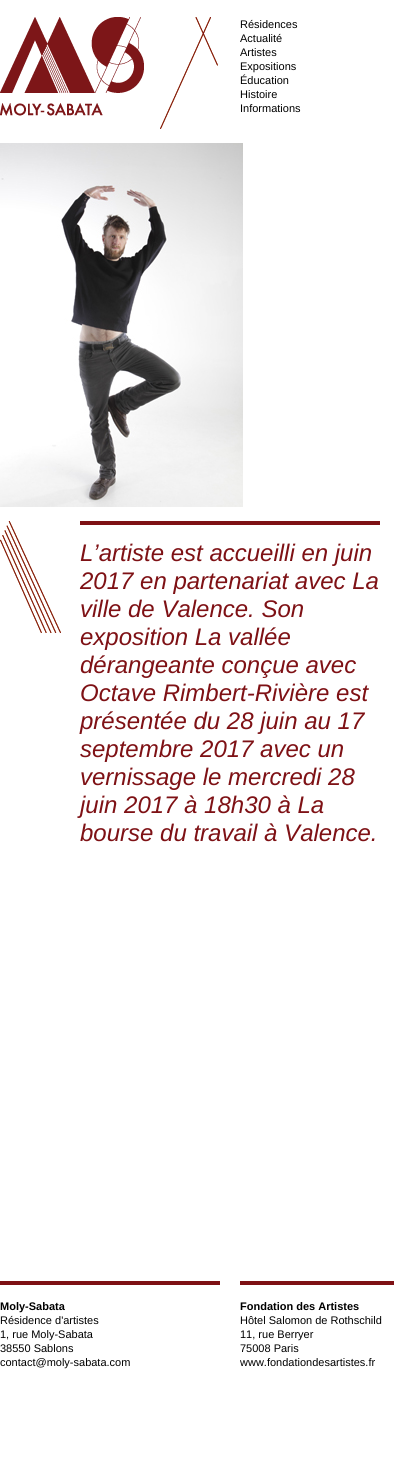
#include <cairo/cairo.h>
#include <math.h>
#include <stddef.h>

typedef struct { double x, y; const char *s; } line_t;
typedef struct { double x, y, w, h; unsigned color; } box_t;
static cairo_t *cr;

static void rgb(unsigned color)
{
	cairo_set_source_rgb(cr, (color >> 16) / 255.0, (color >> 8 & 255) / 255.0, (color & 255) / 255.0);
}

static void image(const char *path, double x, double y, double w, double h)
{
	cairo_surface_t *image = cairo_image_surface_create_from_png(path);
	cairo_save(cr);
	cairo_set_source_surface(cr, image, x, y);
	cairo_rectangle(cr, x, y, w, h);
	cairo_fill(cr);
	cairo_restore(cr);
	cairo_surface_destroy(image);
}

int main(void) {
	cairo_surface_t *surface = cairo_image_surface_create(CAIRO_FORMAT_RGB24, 394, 1479);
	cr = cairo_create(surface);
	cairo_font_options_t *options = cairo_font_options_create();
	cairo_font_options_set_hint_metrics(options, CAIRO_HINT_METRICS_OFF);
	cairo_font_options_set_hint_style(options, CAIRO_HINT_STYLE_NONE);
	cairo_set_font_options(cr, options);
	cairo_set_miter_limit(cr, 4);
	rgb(0xffffff);
	cairo_paint(cr);
	image("img/1.png", 0, 17, 144, 99);
	image("img/2.png", 160, 17, 58, 112);
	image("img/3.png", 0, 143, 243, 364);
	image("img/4.png", 0, 521, 61, 112);
	{
		static const box_t items[] = {
			{80, 521, 300, 4, 0x7e1115},
			{0, 1281, 220, 4, 0x7e1115},
			{240, 1281, 154, 4, 0x7e1115},
		};
		for (size_t i = 0; i < sizeof items / sizeof *items; i++) {
			rgb(items[i].color);
			cairo_rectangle(cr, items[i].x, items[i].y, items[i].w, items[i].h);
			cairo_fill(cr);
		}
	}
	cairo_select_font_face(cr, "Liberation Sans", CAIRO_FONT_SLANT_NORMAL, CAIRO_FONT_WEIGHT_NORMAL);
	cairo_set_font_size(cr, 11);
	rgb(0x000000);
	{
		static const line_t items[] = {
			{240, 28, "Résidences"},
			{240, 42, "Actualité"},
			{240, 56, "Artistes"},
			{240, 70, "Expositions"},
			{240, 84, "Éducation"},
			{240, 98, "Histoire"},
			{240, 112, "Informations"},
		};
		for (size_t i = 0; i < sizeof items / sizeof *items; i++) {
			cairo_move_to(cr, items[i].x, items[i].y);
			cairo_show_text(cr, items[i].s);
		}
	}
	cairo_select_font_face(cr, "Liberation Sans", CAIRO_FONT_SLANT_ITALIC, CAIRO_FONT_WEIGHT_NORMAL);
	cairo_set_font_size(cr, 24);
	rgb(0x7e1115);
	{
		static const line_t items[] = {
			{80, 561, "L’artiste est accueilli en juin"},
			{80, 589, "2017 en partenariat avec La"},
			{80, 617, "ville de Valence. Son"},
			{80, 645, "exposition La vallée"},
			{80, 673, "dérangeante conçue avec"},
			{80, 701, "Octave Rimbert-Rivière est"},
			{80, 729, "présentée du 28 juin au 17"},
			{80, 757, "septembre 2017 avec un"},
			{80, 785, "vernissage le mercredi 28"},
			{80, 813, "juin 2017 à 18h30 à La"},
			{80, 841, "bourse du travail à Valence."},
		};
		for (size_t i = 0; i < sizeof items / sizeof *items; i++) {
			cairo_move_to(cr, items[i].x, items[i].y);
			cairo_show_text(cr, items[i].s);
		}
	}
	cairo_select_font_face(cr, "Liberation Sans", CAIRO_FONT_SLANT_NORMAL, CAIRO_FONT_WEIGHT_BOLD);
	cairo_set_font_size(cr, 11);
	rgb(0x000000);
	cairo_move_to(cr, 0, 1310);
	cairo_show_text(cr, "Moly-Sabata");
	cairo_select_font_face(cr, "Liberation Sans", CAIRO_FONT_SLANT_NORMAL, CAIRO_FONT_WEIGHT_NORMAL);
	{
		static const line_t items[] = {
			{0, 1324, "Résidence d'artistes"},
			{0, 1338, "1, rue Moly-Sabata"},
			{0, 1352, "38550 Sablons"},
			{0, 1366, "contact@moly-sabata.com"},
		};
		for (size_t i = 0; i < sizeof items / sizeof *items; i++) {
			cairo_move_to(cr, items[i].x, items[i].y);
			cairo_show_text(cr, items[i].s);
		}
	}
	cairo_select_font_face(cr, "Liberation Sans", CAIRO_FONT_SLANT_NORMAL, CAIRO_FONT_WEIGHT_BOLD);
	cairo_move_to(cr, 240, 1310);
	cairo_show_text(cr, "Fondation des Artistes");
	cairo_select_font_face(cr, "Liberation Sans", CAIRO_FONT_SLANT_NORMAL, CAIRO_FONT_WEIGHT_NORMAL);
	{
		static const line_t items[] = {
			{240, 1324, "Hôtel Salomon de Rothschild"},
			{240, 1338, "11, rue Berryer"},
			{240, 1352, "75008 Paris"},
			{240, 1366, "www.fondationdesartistes.fr"},
		};
		for (size_t i = 0; i < sizeof items / sizeof *items; i++) {
			cairo_move_to(cr, items[i].x, items[i].y);
			cairo_show_text(cr, items[i].s);
		}
	}
	cairo_surface_write_to_png(surface, "page.png");
	cairo_font_options_destroy(options);
	cairo_destroy(cr);
	cairo_surface_destroy(surface);
	return 0;
}
